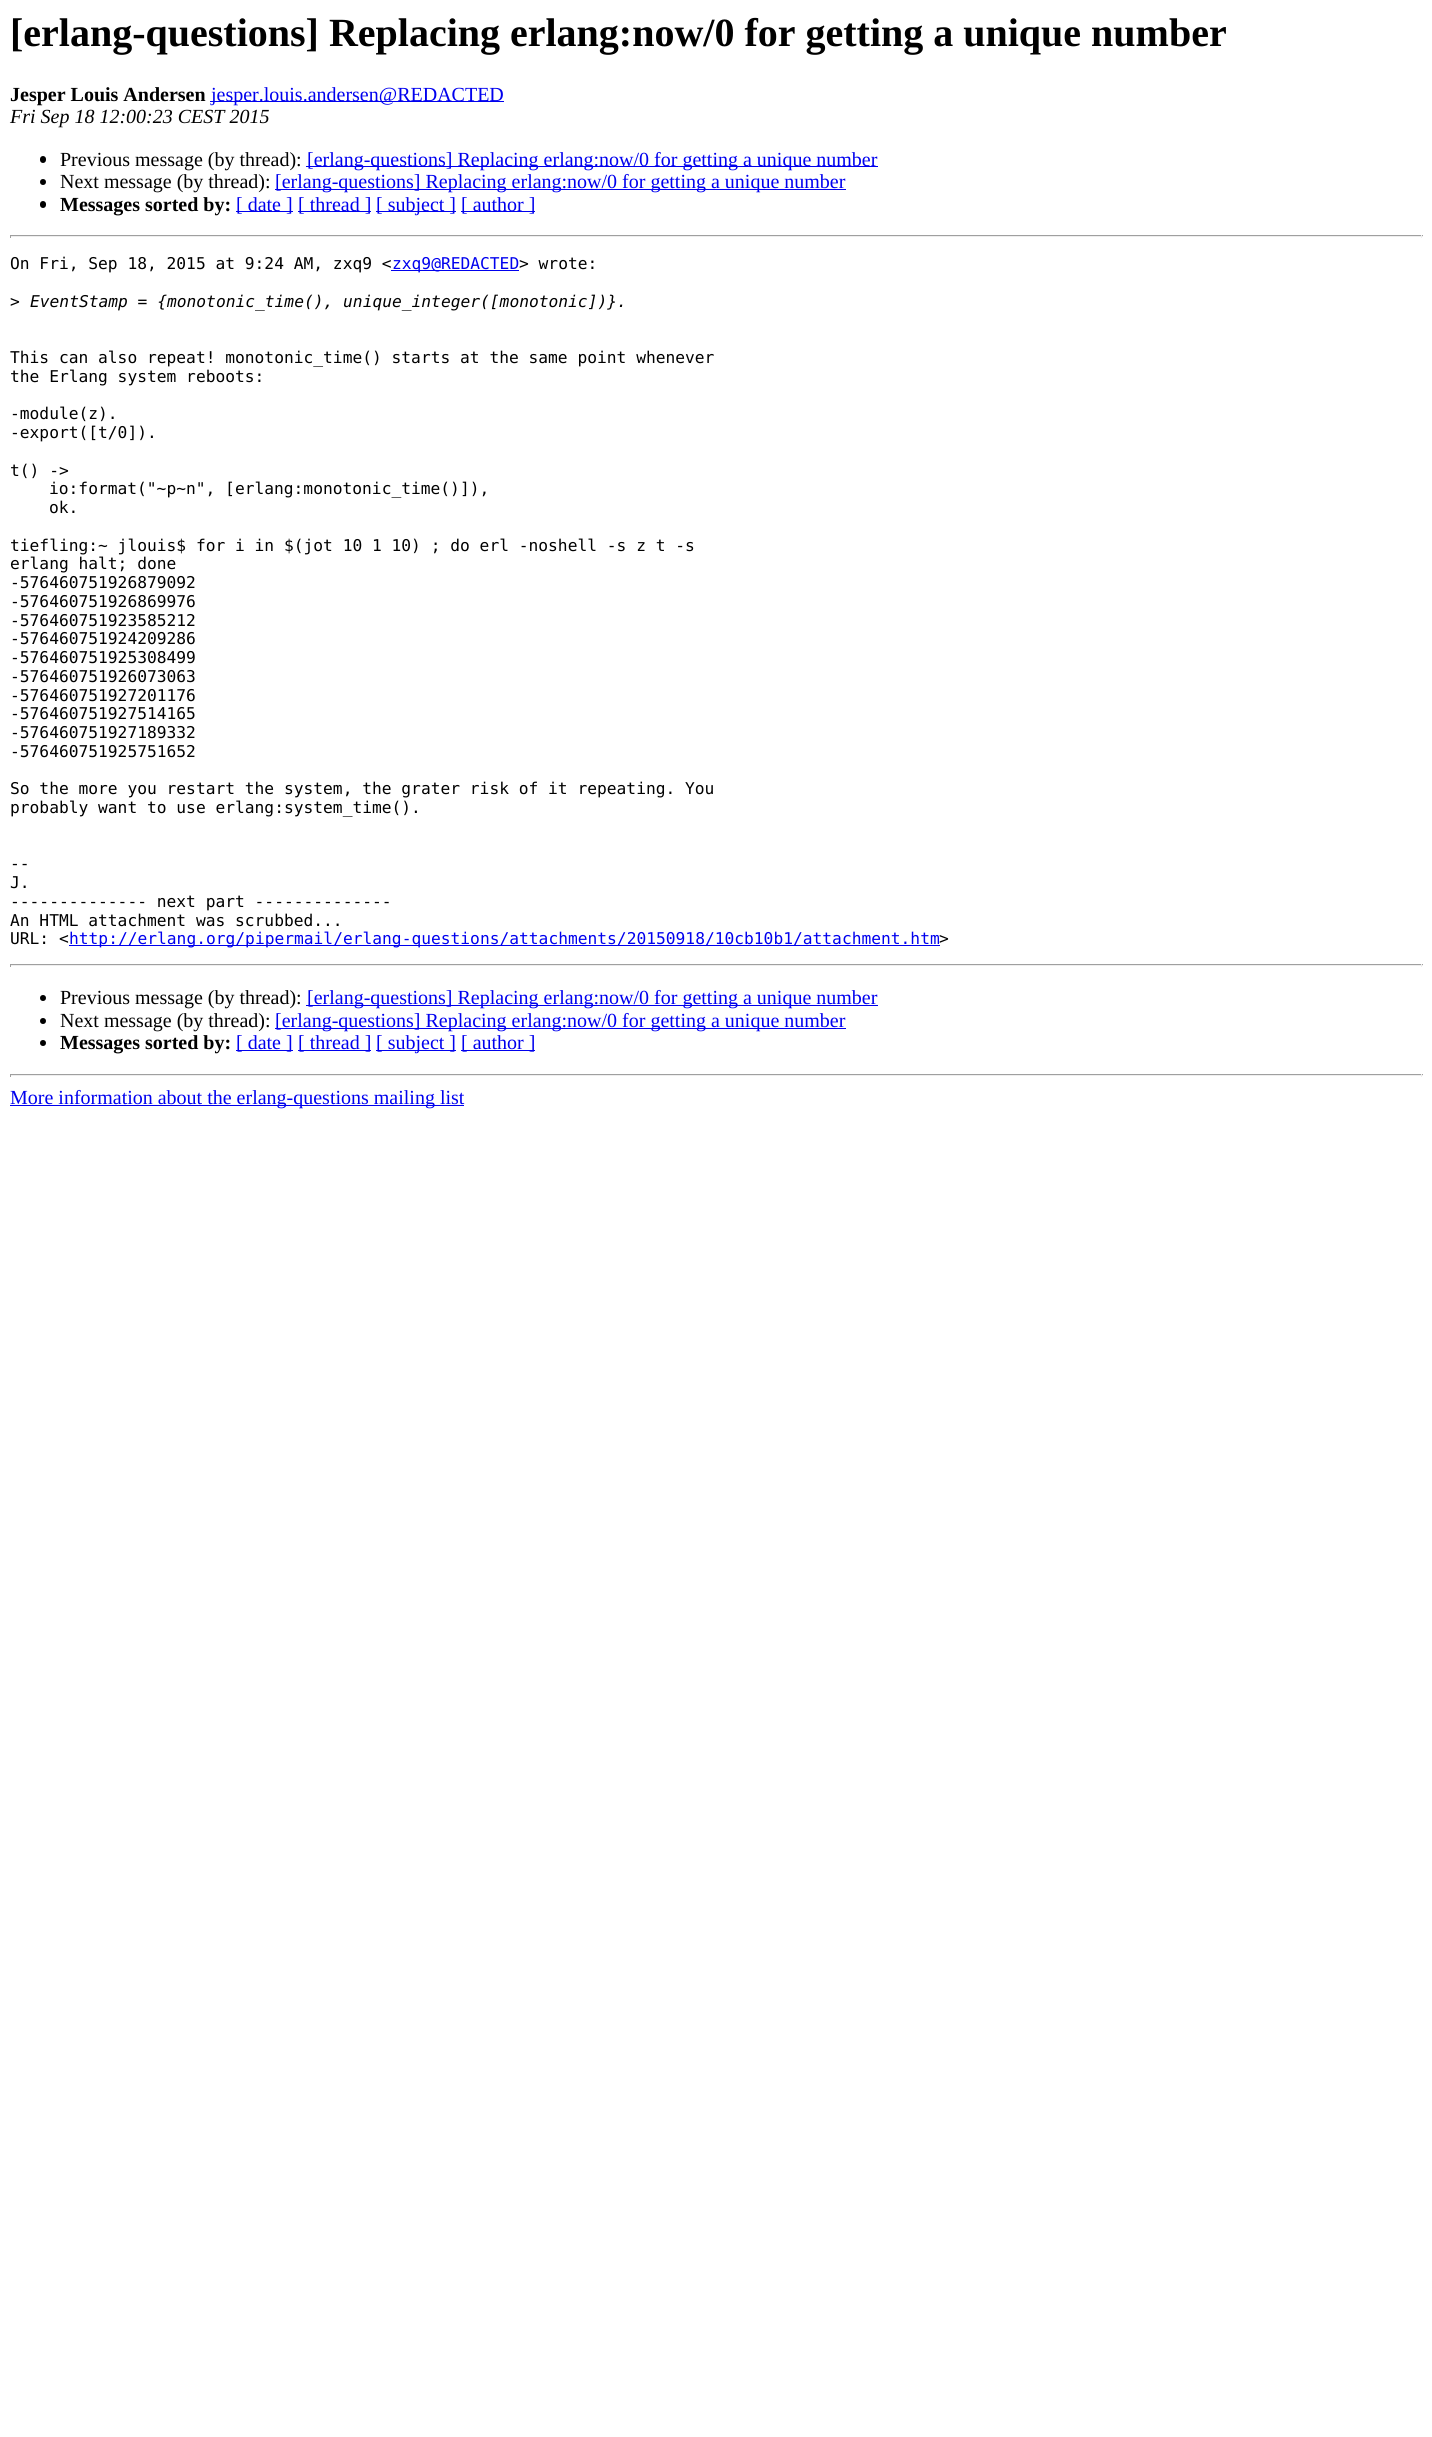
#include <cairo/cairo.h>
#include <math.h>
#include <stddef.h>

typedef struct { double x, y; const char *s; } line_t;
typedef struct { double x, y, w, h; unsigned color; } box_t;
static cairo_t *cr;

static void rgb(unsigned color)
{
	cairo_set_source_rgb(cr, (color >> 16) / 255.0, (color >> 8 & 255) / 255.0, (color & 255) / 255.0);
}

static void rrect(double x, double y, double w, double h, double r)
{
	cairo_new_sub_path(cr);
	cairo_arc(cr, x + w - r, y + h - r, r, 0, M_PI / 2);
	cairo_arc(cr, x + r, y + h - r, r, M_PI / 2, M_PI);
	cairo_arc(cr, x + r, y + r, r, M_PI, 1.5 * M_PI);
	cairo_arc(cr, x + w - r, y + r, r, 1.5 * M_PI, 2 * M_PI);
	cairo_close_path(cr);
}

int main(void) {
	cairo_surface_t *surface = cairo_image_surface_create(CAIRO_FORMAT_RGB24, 1432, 2437);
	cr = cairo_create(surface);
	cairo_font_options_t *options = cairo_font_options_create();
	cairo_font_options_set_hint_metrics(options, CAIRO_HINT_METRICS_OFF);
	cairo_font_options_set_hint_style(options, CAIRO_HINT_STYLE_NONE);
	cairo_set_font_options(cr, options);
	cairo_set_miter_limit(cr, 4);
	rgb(0xffffff);
	cairo_paint(cr);
	rgb(0x0000ee);
	cairo_rectangle(cr, 210, 101, 294, 1);
	cairo_fill(cr);
	rgb(0x000000);
	rrect(40, 156, 6, 7, 3);
	cairo_fill(cr);
	rgb(0x0000ee);
	cairo_rectangle(cr, 306, 166, 572, 1);
	cairo_fill(cr);
	rgb(0x000000);
	cairo_arc(cr, 43, 182, 3, 0, 2 * M_PI);
	cairo_fill(cr);
	rgb(0x0000ee);
	cairo_rectangle(cr, 275, 189, 571, 1);
	cairo_fill(cr);
	rgb(0x000000);
	rrect(40, 201, 6, 7, 3);
	cairo_fill(cr);
	{
		static const box_t items[] = {
			{236, 211, 57, 1, 0x0000ee},
			{298, 211, 73, 1, 0x0000ee},
			{376, 211, 80, 1, 0x0000ee},
			{461, 211, 74, 1, 0x0000ee},
			{10, 235, 1413, 1, 0x9f9f9f},
			{1421, 235, 1, 3, 0xeeeeee},
			{10, 236, 1413, 1, 0xeeeeee},
			{10, 235, 1, 3, 0x9f9f9f},
			{391, 270, 128, 1, 0x0000ee},
			{69, 945, 871, 1, 0x0000ee},
			{10, 964, 1413, 1, 0x9f9f9f},
			{1421, 964, 1, 3, 0xeeeeee},
			{10, 965, 1413, 1, 0xeeeeee},
			{10, 964, 1, 3, 0x9f9f9f},
		};
		for (size_t i = 0; i < sizeof items / sizeof *items; i++) {
			rgb(items[i].color);
			cairo_rectangle(cr, items[i].x, items[i].y, items[i].w, items[i].h);
			cairo_fill(cr);
		}
	}
	rgb(0x000000);
	cairo_arc(cr, 43, 998, 3, 0, 2 * M_PI);
	cairo_fill(cr);
	rgb(0x0000ee);
	cairo_rectangle(cr, 306, 1005, 572, 1);
	cairo_fill(cr);
	rgb(0x000000);
	cairo_arc(cr, 43, 1021, 3, 0, 2 * M_PI);
	cairo_fill(cr);
	rgb(0x0000ee);
	cairo_rectangle(cr, 275, 1028, 571, 1);
	cairo_fill(cr);
	rgb(0x000000);
	cairo_arc(cr, 43, 1043, 3, 0, 2 * M_PI);
	cairo_fill(cr);
	{
		static const box_t items[] = {
			{236, 1050, 57, 1, 0x0000ee},
			{298, 1050, 73, 1, 0x0000ee},
			{376, 1050, 80, 1, 0x0000ee},
			{461, 1050, 74, 1, 0x0000ee},
			{10, 1074, 1413, 1, 0x9f9f9f},
			{1421, 1074, 1, 3, 0xeeeeee},
			{10, 1075, 1413, 1, 0xeeeeee},
			{10, 1074, 1, 3, 0x9f9f9f},
			{10, 1105, 454, 1, 0x0000ee},
		};
		for (size_t i = 0; i < sizeof items / sizeof *items; i++) {
			rgb(items[i].color);
			cairo_rectangle(cr, items[i].x, items[i].y, items[i].w, items[i].h);
			cairo_fill(cr);
		}
	}
	cairo_select_font_face(cr, "Liberation Serif", CAIRO_FONT_SLANT_NORMAL, CAIRO_FONT_WEIGHT_BOLD);
	cairo_set_font_size(cr, 40);
	rgb(0x000000);
	cairo_move_to(cr, 10, 46);
	cairo_show_text(cr, "[erlang-questions] Replacing erlang:now/0 for getting a unique number");
	cairo_set_font_size(cr, 20);
	cairo_move_to(cr, 10, 101);
	cairo_show_text(cr, "Jesper Louis Andersen");
	cairo_select_font_face(cr, "Liberation Serif", CAIRO_FONT_SLANT_NORMAL, CAIRO_FONT_WEIGHT_NORMAL);
	rgb(0x0000ee);
	cairo_move_to(cr, 211, 101);
	cairo_show_text(cr, "jesper.louis.andersen@REDACTED");
	cairo_select_font_face(cr, "Liberation Serif", CAIRO_FONT_SLANT_ITALIC, CAIRO_FONT_WEIGHT_NORMAL);
	rgb(0x000000);
	cairo_move_to(cr, 10, 123);
	cairo_show_text(cr, "Fri Sep 18 12:00:23 CEST 2015");
	cairo_select_font_face(cr, "Liberation Serif", CAIRO_FONT_SLANT_NORMAL, CAIRO_FONT_WEIGHT_NORMAL);
	cairo_move_to(cr, 60, 166);
	cairo_show_text(cr, "Previous message (by thread):");
	rgb(0x0000ee);
	cairo_move_to(cr, 307, 166);
	cairo_show_text(cr, "[erlang-questions] Replacing erlang:now/0 for getting a unique number");
	rgb(0x000000);
	cairo_move_to(cr, 60, 188);
	cairo_show_text(cr, "Next message (by thread):");
	rgb(0x0000ee);
	cairo_move_to(cr, 275, 188);
	cairo_show_text(cr, "[erlang-questions] Replacing erlang:now/0 for getting a unique number");
	cairo_select_font_face(cr, "Liberation Serif", CAIRO_FONT_SLANT_NORMAL, CAIRO_FONT_WEIGHT_BOLD);
	rgb(0x000000);
	cairo_move_to(cr, 60, 211);
	cairo_show_text(cr, "Messages sorted by:");
	cairo_select_font_face(cr, "Liberation Serif", CAIRO_FONT_SLANT_NORMAL, CAIRO_FONT_WEIGHT_NORMAL);
	rgb(0x0000ee);
	{
		static const line_t items[] = {
			{236, 211, "[ date ]"},
			{298, 211, "[ thread ]"},
			{376, 211, "[ subject ]"},
			{461, 211, "[ author ]"},
		};
		for (size_t i = 0; i < sizeof items / sizeof *items; i++) {
			cairo_move_to(cr, items[i].x, items[i].y);
			cairo_show_text(cr, items[i].s);
		}
	}
	cairo_select_font_face(cr, "DejaVu Sans Mono", CAIRO_FONT_SLANT_NORMAL, CAIRO_FONT_WEIGHT_NORMAL);
	cairo_set_font_size(cr, 16.25);
	rgb(0x000000);
	cairo_move_to(cr, 10, 269);
	cairo_show_text(cr, "On Fri, Sep 18, 2015 at 9:24 AM, zxq9 <");
	rgb(0x0000ee);
	cairo_move_to(cr, 392, 269);
	cairo_show_text(cr, "zxq9@REDACTED");
	rgb(0x000000);
	cairo_move_to(cr, 519, 269);
	cairo_show_text(cr, "> wrote:");
	cairo_move_to(cr, 10, 307);
	cairo_show_text(cr, ">");
	cairo_select_font_face(cr, "DejaVu Sans Mono", CAIRO_FONT_SLANT_ITALIC, CAIRO_FONT_WEIGHT_NORMAL);
	cairo_move_to(cr, 30, 307);
	cairo_show_text(cr, "EventStamp = {monotonic_time(), unique_integer([monotonic])}.");
	cairo_select_font_face(cr, "DejaVu Sans Mono", CAIRO_FONT_SLANT_NORMAL, CAIRO_FONT_WEIGHT_NORMAL);
	{
		static const line_t items[] = {
			{10, 363, "This can also repeat! monotonic_time() starts at the same point whenever"},
			{10, 382, "the Erlang system reboots:"},
			{10, 419, "-module(z)."},
			{10, 438, "-export([t/0])."},
			{10, 476, "t() ->"},
			{49, 494, "io:format(\"~p~n\", [erlang:monotonic_time()]),"},
			{49, 513, "ok."},
			{10, 551, "tiefling:~ jlouis$ for i in $(jot 10 1 10) ; do erl -noshell -s z t -s"},
			{10, 569, "erlang halt; done"},
			{10, 588, "-576460751926879092"},
			{10, 607, "-576460751926869976"},
			{10, 626, "-576460751923585212"},
			{10, 644, "-576460751924209286"},
			{10, 663, "-576460751925308499"},
			{10, 682, "-576460751926073063"},
			{10, 701, "-576460751927201176"},
			{10, 719, "-576460751927514165"},
			{10, 738, "-576460751927189332"},
			{10, 757, "-576460751925751652"},
			{10, 794, "So the more you restart the system, the grater risk of it repeating. You"},
			{10, 813, "probably want to use erlang:system_time()."},
			{10, 869, "--"},
			{10, 888, "J."},
			{10, 907, "-------------- next part --------------"},
			{10, 926, "An HTML attachment was scrubbed..."},
			{10, 944, "URL: <"},
		};
		for (size_t i = 0; i < sizeof items / sizeof *items; i++) {
			cairo_move_to(cr, items[i].x, items[i].y);
			cairo_show_text(cr, items[i].s);
		}
	}
	rgb(0x0000ee);
	cairo_move_to(cr, 69, 944);
	cairo_show_text(cr, "http://erlang.org/pipermail/erlang-questions/attachments/20150918/10cb10b1/attachment.htm");
	rgb(0x000000);
	cairo_move_to(cr, 939, 944);
	cairo_show_text(cr, ">");
	cairo_select_font_face(cr, "Liberation Serif", CAIRO_FONT_SLANT_NORMAL, CAIRO_FONT_WEIGHT_NORMAL);
	cairo_set_font_size(cr, 20);
	cairo_move_to(cr, 60, 1004);
	cairo_show_text(cr, "Previous message (by thread):");
	rgb(0x0000ee);
	cairo_move_to(cr, 307, 1004);
	cairo_show_text(cr, "[erlang-questions] Replacing erlang:now/0 for getting a unique number");
	rgb(0x000000);
	cairo_move_to(cr, 60, 1027);
	cairo_show_text(cr, "Next message (by thread):");
	rgb(0x0000ee);
	cairo_move_to(cr, 275, 1027);
	cairo_show_text(cr, "[erlang-questions] Replacing erlang:now/0 for getting a unique number");
	cairo_select_font_face(cr, "Liberation Serif", CAIRO_FONT_SLANT_NORMAL, CAIRO_FONT_WEIGHT_BOLD);
	rgb(0x000000);
	cairo_move_to(cr, 60, 1049);
	cairo_show_text(cr, "Messages sorted by:");
	cairo_select_font_face(cr, "Liberation Serif", CAIRO_FONT_SLANT_NORMAL, CAIRO_FONT_WEIGHT_NORMAL);
	rgb(0x0000ee);
	{
		static const line_t items[] = {
			{236, 1049, "[ date ]"},
			{298, 1049, "[ thread ]"},
			{376, 1049, "[ subject ]"},
			{461, 1049, "[ author ]"},
			{10, 1104, "More information about the erlang-questions mailing list"},
		};
		for (size_t i = 0; i < sizeof items / sizeof *items; i++) {
			cairo_move_to(cr, items[i].x, items[i].y);
			cairo_show_text(cr, items[i].s);
		}
	}
	cairo_surface_write_to_png(surface, "page.png");
	cairo_font_options_destroy(options);
	cairo_destroy(cr);
	cairo_surface_destroy(surface);
	return 0;
}
